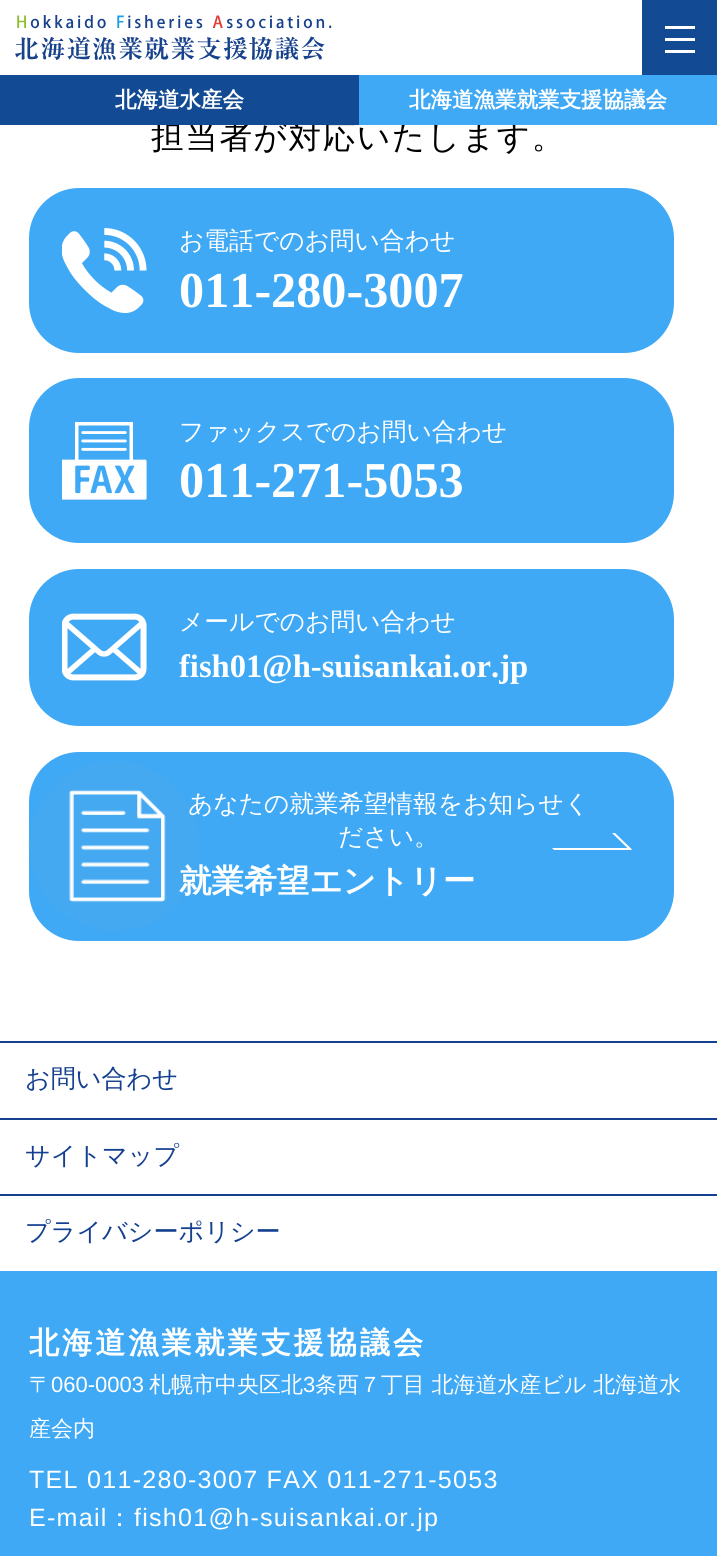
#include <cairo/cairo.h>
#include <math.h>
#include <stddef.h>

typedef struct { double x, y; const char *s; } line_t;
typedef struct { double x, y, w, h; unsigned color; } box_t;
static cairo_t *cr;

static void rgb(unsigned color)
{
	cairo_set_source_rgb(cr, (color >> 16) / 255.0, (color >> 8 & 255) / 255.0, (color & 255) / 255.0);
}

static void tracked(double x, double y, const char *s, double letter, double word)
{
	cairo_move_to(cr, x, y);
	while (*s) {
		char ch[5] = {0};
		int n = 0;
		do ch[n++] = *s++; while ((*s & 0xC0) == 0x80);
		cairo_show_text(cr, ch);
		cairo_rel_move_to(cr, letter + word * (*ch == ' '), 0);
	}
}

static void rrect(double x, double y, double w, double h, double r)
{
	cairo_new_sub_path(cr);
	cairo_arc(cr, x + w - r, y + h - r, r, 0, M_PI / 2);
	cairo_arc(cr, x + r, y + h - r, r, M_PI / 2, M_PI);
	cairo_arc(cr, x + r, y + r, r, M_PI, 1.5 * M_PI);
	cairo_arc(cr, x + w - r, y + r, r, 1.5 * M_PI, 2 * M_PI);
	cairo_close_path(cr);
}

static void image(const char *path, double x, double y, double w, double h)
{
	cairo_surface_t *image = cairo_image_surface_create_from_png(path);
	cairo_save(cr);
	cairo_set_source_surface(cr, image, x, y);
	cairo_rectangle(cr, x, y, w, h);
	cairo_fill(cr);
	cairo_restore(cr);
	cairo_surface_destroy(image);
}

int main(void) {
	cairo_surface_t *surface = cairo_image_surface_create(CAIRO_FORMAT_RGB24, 717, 1556);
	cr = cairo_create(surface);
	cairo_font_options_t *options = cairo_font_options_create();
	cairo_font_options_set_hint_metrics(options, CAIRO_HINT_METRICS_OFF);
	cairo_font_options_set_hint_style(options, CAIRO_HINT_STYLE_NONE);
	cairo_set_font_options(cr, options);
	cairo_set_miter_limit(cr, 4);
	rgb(0xffffff);
	cairo_paint(cr);
	image("img/1.png", 15, 15, 317, 45);
	{
		static const box_t items[] = {
			{642, 0, 75, 75, 0x124a93},
			{665, 38, 30, 3, 0xffffff},
			{665, 26, 30, 3, 0xffffff},
			{665, 50, 30, 3, 0xffffff},
		};
		for (size_t i = 0; i < sizeof items / sizeof *items; i++) {
			rgb(items[i].color);
			cairo_rectangle(cr, items[i].x, items[i].y, items[i].w, items[i].h);
			cairo_fill(cr);
		}
	}
	rgb(0x3fa9f5);
	rrect(29, 188, 645, 165, 50);
	cairo_fill(cr);
	image("img/2.png", 62, 228, 85, 85);
	rrect(29, 378, 645, 165, 50);
	cairo_fill(cr);
	image("img/3.png", 62, 422, 85, 78);
	rrect(29, 569, 645, 157, 50);
	cairo_fill(cr);
	image("img/4.png", 62, 613, 85, 68);
	rrect(29, 752, 645, 189, 50);
	cairo_fill(cr);
	image("img/5.png", 28, 761, 171, 170);
	rgb(0xffffff);
	cairo_new_path(cr);
	cairo_move_to(cr, 612, 833);
	cairo_line_to(cr, 615, 833);
	cairo_line_to(cr, 632, 849.5);
	cairo_line_to(cr, 629, 849.5);
	cairo_close_path(cr);
	cairo_fill(cr);
	cairo_new_path(cr);
	cairo_move_to(cr, 552, 848);
	cairo_line_to(cr, 630, 848);
	cairo_line_to(cr, 632, 850);
	cairo_line_to(cr, 554, 850);
	cairo_close_path(cr);
	cairo_fill(cr);
	{
		static const box_t items[] = {
			{0, 1041, 717, 2, 0x14408f},
			{0, 1118, 717, 2, 0x14408f},
			{0, 1194, 717, 2, 0x14408f},
			{0, 1271, 717, 285, 0x3fa9f5},
		};
		for (size_t i = 0; i < sizeof items / sizeof *items; i++) {
			rgb(items[i].color);
			cairo_rectangle(cr, items[i].x, items[i].y, items[i].w, items[i].h);
			cairo_fill(cr);
		}
	}
	cairo_select_font_face(cr, "WenQuanYi Zen Hei Medium", CAIRO_FONT_SLANT_NORMAL, CAIRO_FONT_WEIGHT_NORMAL);
	cairo_set_font_size(cr, 32.6);
	rgb(0x000000);
	tracked(151, 148, "担当者が対応いたします。", 1.6, 0);
	rgb(0x3fa9f5);
	cairo_rectangle(cr, 359, 75, 358, 50);
	cairo_fill(cr);
	cairo_select_font_face(cr, "WenQuanYi Zen Hei", CAIRO_FONT_SLANT_NORMAL, CAIRO_FONT_WEIGHT_BOLD);
	cairo_set_font_size(cr, 21.5);
	rgb(0xffffff);
	cairo_move_to(cr, 409, 107);
	cairo_show_text(cr, "北海道漁業就業支援協議会");
	rgb(0x124a93);
	cairo_rectangle(cr, 0, 75, 359, 50);
	cairo_fill(cr);
	rgb(0xffffff);
	cairo_move_to(cr, 115, 107);
	cairo_show_text(cr, "北海道水産会");
	cairo_select_font_face(cr, "WenQuanYi Zen Hei Medium", CAIRO_FONT_SLANT_NORMAL, CAIRO_FONT_WEIGHT_NORMAL);
	cairo_set_font_size(cr, 24.75);
	cairo_move_to(cr, 179, 249);
	cairo_show_text(cr, "お電話でのお問い合わせ");
	cairo_select_font_face(cr, "Liberation Serif", CAIRO_FONT_SLANT_NORMAL, CAIRO_FONT_WEIGHT_BOLD);
	cairo_set_font_size(cr, 50.25);
	cairo_move_to(cr, 179, 307);
	cairo_show_text(cr, "011-280-3007");
	cairo_select_font_face(cr, "WenQuanYi Zen Hei Medium", CAIRO_FONT_SLANT_NORMAL, CAIRO_FONT_WEIGHT_NORMAL);
	cairo_set_font_size(cr, 24.75);
	cairo_move_to(cr, 179, 440);
	cairo_show_text(cr, "ファックスでのお問い合わせ");
	cairo_select_font_face(cr, "Liberation Serif", CAIRO_FONT_SLANT_NORMAL, CAIRO_FONT_WEIGHT_BOLD);
	cairo_set_font_size(cr, 50.25);
	cairo_move_to(cr, 179, 497);
	cairo_show_text(cr, "011-271-5053");
	cairo_select_font_face(cr, "WenQuanYi Zen Hei Medium", CAIRO_FONT_SLANT_NORMAL, CAIRO_FONT_WEIGHT_NORMAL);
	cairo_set_font_size(cr, 24.75);
	cairo_move_to(cr, 179, 630);
	cairo_show_text(cr, "メールでのお問い合わせ");
	cairo_select_font_face(cr, "Liberation Serif", CAIRO_FONT_SLANT_NORMAL, CAIRO_FONT_WEIGHT_BOLD);
	cairo_set_font_size(cr, 32.6);
	cairo_move_to(cr, 179, 677);
	cairo_show_text(cr, "fish01@h-suisankai.or.jp");
	cairo_select_font_face(cr, "WenQuanYi Zen Hei Medium", CAIRO_FONT_SLANT_NORMAL, CAIRO_FONT_WEIGHT_NORMAL);
	cairo_set_font_size(cr, 24.75);
	cairo_move_to(cr, 188, 812);
	cairo_show_text(cr, "あなたの就業希望情報をお知らせく");
	cairo_move_to(cr, 338, 845);
	cairo_show_text(cr, "ださい。");
	cairo_select_font_face(cr, "WenQuanYi Zen Hei", CAIRO_FONT_SLANT_NORMAL, CAIRO_FONT_WEIGHT_BOLD);
	cairo_set_font_size(cr, 32.6);
	cairo_move_to(cr, 179, 892);
	cairo_show_text(cr, "就業希望エントリー");
	cairo_select_font_face(cr, "WenQuanYi Zen Hei Medium", CAIRO_FONT_SLANT_NORMAL, CAIRO_FONT_WEIGHT_NORMAL);
	cairo_set_font_size(cr, 25.1);
	rgb(0x14408f);
	{
		static const line_t items[] = {
			{25, 1087, "お問い合わせ"},
			{25, 1164, "サイトマップ"},
			{25, 1240, "プライバシーポリシー"},
		};
		for (size_t i = 0; i < sizeof items / sizeof *items; i++) {
			cairo_move_to(cr, items[i].x, items[i].y);
			cairo_show_text(cr, items[i].s);
		}
	}
	cairo_select_font_face(cr, "WenQuanYi Zen Hei", CAIRO_FONT_SLANT_NORMAL, CAIRO_FONT_WEIGHT_BOLD);
	cairo_set_font_size(cr, 30.1);
	rgb(0xffffff);
	tracked(29, 1353, "北海道漁業就業支援協議会", 3, 0);
	cairo_select_font_face(cr, "WenQuanYi Zen Hei Medium", CAIRO_FONT_SLANT_NORMAL, CAIRO_FONT_WEIGHT_NORMAL);
	cairo_set_font_size(cr, 22);
	cairo_move_to(cr, 29, 1392);
	cairo_show_text(cr, "〒");
	cairo_select_font_face(cr, "Liberation Sans", CAIRO_FONT_SLANT_NORMAL, CAIRO_FONT_WEIGHT_NORMAL);
	cairo_move_to(cr, 51, 1392);
	cairo_show_text(cr, "060-0003");
	cairo_select_font_face(cr, "WenQuanYi Zen Hei Medium", CAIRO_FONT_SLANT_NORMAL, CAIRO_FONT_WEIGHT_NORMAL);
	cairo_move_to(cr, 149, 1392);
	cairo_show_text(cr, "札幌市中央区北");
	cairo_select_font_face(cr, "Liberation Sans", CAIRO_FONT_SLANT_NORMAL, CAIRO_FONT_WEIGHT_NORMAL);
	cairo_move_to(cr, 303, 1392);
	cairo_show_text(cr, "3");
	cairo_select_font_face(cr, "WenQuanYi Zen Hei Medium", CAIRO_FONT_SLANT_NORMAL, CAIRO_FONT_WEIGHT_NORMAL);
	cairo_move_to(cr, 315, 1392);
	cairo_show_text(cr, "条西７丁目 北海道水産ビル 北海道水");
	cairo_move_to(cr, 29, 1436);
	cairo_show_text(cr, "産会内");
	cairo_select_font_face(cr, "Liberation Sans", CAIRO_FONT_SLANT_NORMAL, CAIRO_FONT_WEIGHT_NORMAL);
	cairo_set_font_size(cr, 25.1);
	tracked(29, 1488, "TEL 011-280-3007 FAX 011-271-5053", 1.25, 0);
	tracked(29, 1526, "E-mail", 1.25, 0);
	cairo_select_font_face(cr, "WenQuanYi Zen Hei Medium", CAIRO_FONT_SLANT_NORMAL, CAIRO_FONT_WEIGHT_NORMAL);
	tracked(107, 1526, "：", 1.25, 0);
	cairo_select_font_face(cr, "Liberation Sans", CAIRO_FONT_SLANT_NORMAL, CAIRO_FONT_WEIGHT_NORMAL);
	tracked(134, 1526, "fish01@h-suisankai.or.jp", 1.25, 0);
	cairo_surface_write_to_png(surface, "page.png");
	cairo_font_options_destroy(options);
	cairo_destroy(cr);
	cairo_surface_destroy(surface);
	return 0;
}
